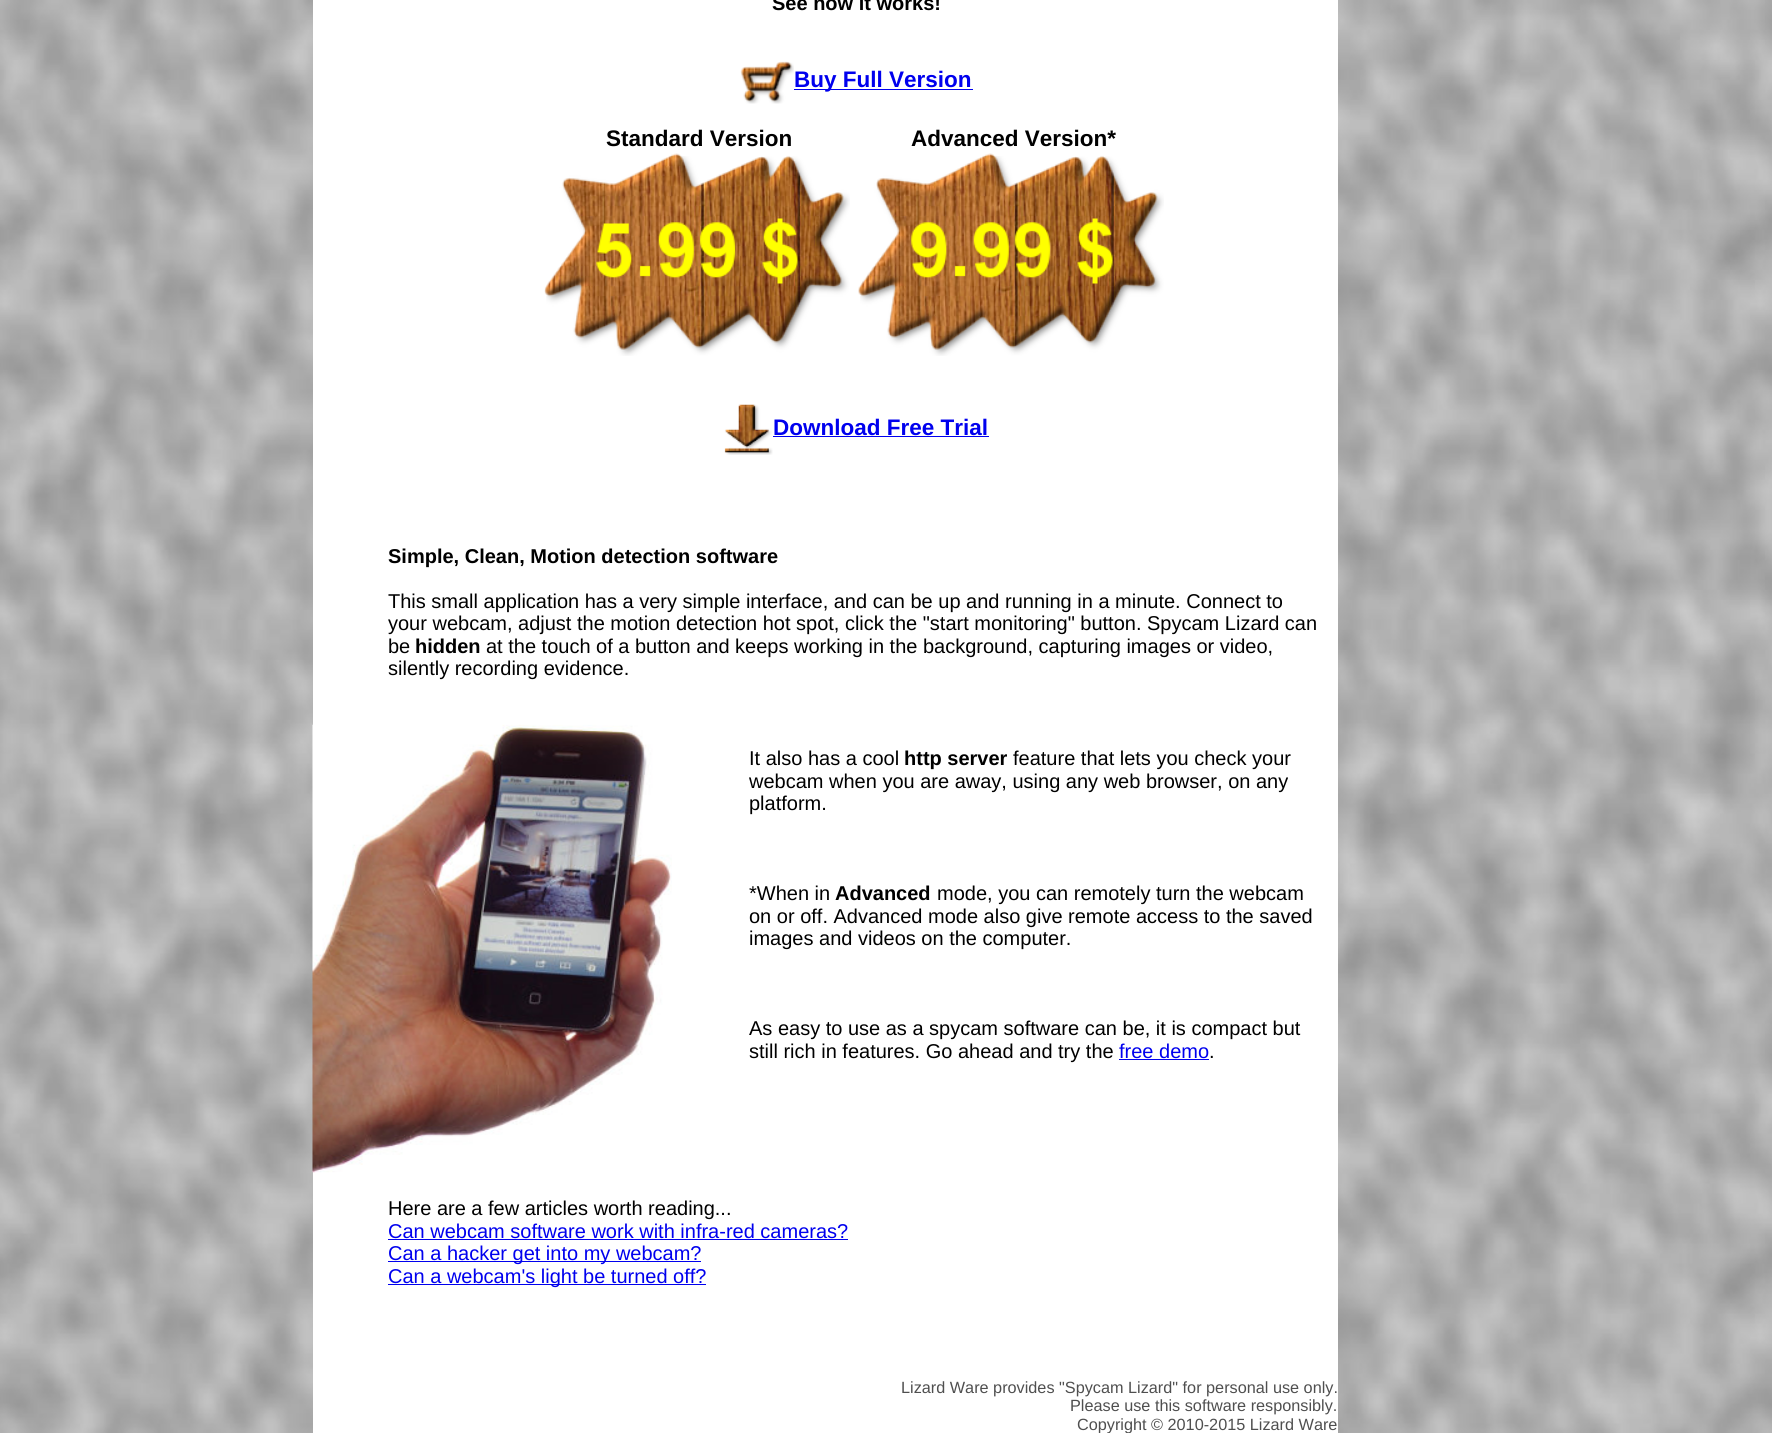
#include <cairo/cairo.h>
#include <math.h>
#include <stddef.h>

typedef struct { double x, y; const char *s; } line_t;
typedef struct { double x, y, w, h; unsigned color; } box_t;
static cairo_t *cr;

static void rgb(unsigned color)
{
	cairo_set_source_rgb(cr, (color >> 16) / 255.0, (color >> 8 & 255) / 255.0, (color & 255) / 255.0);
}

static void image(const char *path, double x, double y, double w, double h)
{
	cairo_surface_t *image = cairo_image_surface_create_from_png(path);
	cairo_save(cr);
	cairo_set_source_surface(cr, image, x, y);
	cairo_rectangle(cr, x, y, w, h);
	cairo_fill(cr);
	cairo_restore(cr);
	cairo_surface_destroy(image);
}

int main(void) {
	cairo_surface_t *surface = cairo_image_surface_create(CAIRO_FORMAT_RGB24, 1772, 1433);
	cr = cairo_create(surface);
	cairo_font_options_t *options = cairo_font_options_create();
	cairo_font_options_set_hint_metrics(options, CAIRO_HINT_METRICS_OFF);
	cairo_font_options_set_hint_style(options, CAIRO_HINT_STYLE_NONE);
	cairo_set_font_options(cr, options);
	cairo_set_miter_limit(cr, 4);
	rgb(0xffffff);
	cairo_paint(cr);
	image("img/1.png", 0, 0, 1772, 1433);
	rgb(0xffffff);
	cairo_rectangle(cr, 313, 0, 1025, 1433);
	cairo_fill(cr);
	image("img/2.png", 740, 61, 54, 43);
	rgb(0x0000ee);
	cairo_rectangle(cr, 794, 89, 179, 1);
	cairo_fill(cr);
	image("img/3.png", 544, 153, 306, 203);
	image("img/4.png", 858, 153, 306, 203);
	image("img/5.png", 724, 404, 49, 51);
	cairo_rectangle(cr, 773, 436, 216, 1);
	cairo_fill(cr);
	image("img/6.png", 312, 724, 360, 449);
	{
		static const box_t items[] = {
			{1119, 1059, 90, 1, 0x0000ee},
			{388, 1239, 460, 1, 0x0000ee},
			{388, 1261, 313, 1, 0x0000ee},
			{388, 1284, 318, 1, 0x0000ee},
		};
		for (size_t i = 0; i < sizeof items / sizeof *items; i++) {
			rgb(items[i].color);
			cairo_rectangle(cr, items[i].x, items[i].y, items[i].w, items[i].h);
			cairo_fill(cr);
		}
	}
	cairo_select_font_face(cr, "Liberation Sans", CAIRO_FONT_SLANT_NORMAL, CAIRO_FONT_WEIGHT_BOLD);
	cairo_set_font_size(cr, 20);
	rgb(0x000000);
	cairo_move_to(cr, 772, 10);
	cairo_show_text(cr, "See how it works!");
	cairo_set_font_size(cr, 22.5);
	rgb(0x0000ee);
	cairo_move_to(cr, 794, 87);
	cairo_show_text(cr, "Buy Full Version");
	rgb(0x000000);
	cairo_move_to(cr, 606, 146);
	cairo_show_text(cr, "Standard Version");
	cairo_move_to(cr, 911, 146);
	cairo_show_text(cr, "Advanced Version*");
	rgb(0x0000ee);
	cairo_move_to(cr, 773, 435);
	cairo_show_text(cr, "Download Free Trial");
	cairo_set_font_size(cr, 20);
	rgb(0x000000);
	cairo_move_to(cr, 388, 563);
	cairo_show_text(cr, "Simple, Clean, Motion detection software");
	cairo_select_font_face(cr, "Liberation Sans", CAIRO_FONT_SLANT_NORMAL, CAIRO_FONT_WEIGHT_NORMAL);
	{
		static const line_t items[] = {
			{388, 608, "This small application has a very simple interface, and can be up and running in a minute. Connect to"},
			{388, 630, "your webcam, adjust the motion detection hot spot, click the \"start monitoring\" button. Spycam Lizard can"},
			{388, 653, "be"},
		};
		for (size_t i = 0; i < sizeof items / sizeof *items; i++) {
			cairo_move_to(cr, items[i].x, items[i].y);
			cairo_show_text(cr, items[i].s);
		}
	}
	cairo_select_font_face(cr, "Liberation Sans", CAIRO_FONT_SLANT_NORMAL, CAIRO_FONT_WEIGHT_BOLD);
	cairo_move_to(cr, 415, 653);
	cairo_show_text(cr, "hidden");
	cairo_select_font_face(cr, "Liberation Sans", CAIRO_FONT_SLANT_NORMAL, CAIRO_FONT_WEIGHT_NORMAL);
	{
		static const line_t items[] = {
			{486, 653, "at the touch of a button and keeps working in the background, capturing images or video,"},
			{388, 675, "silently recording evidence."},
			{749, 765, "It also has a cool"},
		};
		for (size_t i = 0; i < sizeof items / sizeof *items; i++) {
			cairo_move_to(cr, items[i].x, items[i].y);
			cairo_show_text(cr, items[i].s);
		}
	}
	cairo_select_font_face(cr, "Liberation Sans", CAIRO_FONT_SLANT_NORMAL, CAIRO_FONT_WEIGHT_BOLD);
	cairo_move_to(cr, 904, 765);
	cairo_show_text(cr, "http server");
	cairo_select_font_face(cr, "Liberation Sans", CAIRO_FONT_SLANT_NORMAL, CAIRO_FONT_WEIGHT_NORMAL);
	{
		static const line_t items[] = {
			{1013, 765, "feature that lets you check your"},
			{749, 788, "webcam when you are away, using any web browser, on any"},
			{749, 810, "platform."},
			{749, 900, "*When in"},
		};
		for (size_t i = 0; i < sizeof items / sizeof *items; i++) {
			cairo_move_to(cr, items[i].x, items[i].y);
			cairo_show_text(cr, items[i].s);
		}
	}
	cairo_select_font_face(cr, "Liberation Sans", CAIRO_FONT_SLANT_NORMAL, CAIRO_FONT_WEIGHT_BOLD);
	cairo_move_to(cr, 835, 900);
	cairo_show_text(cr, "Advanced");
	cairo_select_font_face(cr, "Liberation Sans", CAIRO_FONT_SLANT_NORMAL, CAIRO_FONT_WEIGHT_NORMAL);
	{
		static const line_t items[] = {
			{937, 900, "mode, you can remotely turn the webcam"},
			{749, 923, "on or off. Advanced mode also give remote access to the saved"},
			{749, 945, "images and videos on the computer."},
			{749, 1035, "As easy to use as a spycam software can be, it is compact but"},
			{749, 1058, "still rich in features. Go ahead and try the"},
		};
		for (size_t i = 0; i < sizeof items / sizeof *items; i++) {
			cairo_move_to(cr, items[i].x, items[i].y);
			cairo_show_text(cr, items[i].s);
		}
	}
	rgb(0x0000ee);
	cairo_move_to(cr, 1119, 1058);
	cairo_show_text(cr, "free demo");
	rgb(0x000000);
	cairo_move_to(cr, 1209, 1058);
	cairo_show_text(cr, ".");
	cairo_move_to(cr, 388, 1215);
	cairo_show_text(cr, "Here are a few articles worth reading...");
	rgb(0x0000ee);
	{
		static const line_t items[] = {
			{388, 1238, "Can webcam software work with infra-red cameras?"},
			{388, 1260, "Can a hacker get into my webcam?"},
			{388, 1283, "Can a webcam's light be turned off?"},
		};
		for (size_t i = 0; i < sizeof items / sizeof *items; i++) {
			cairo_move_to(cr, items[i].x, items[i].y);
			cairo_show_text(cr, items[i].s);
		}
	}
	cairo_set_font_size(cr, 16.25);
	rgb(0x4f4f4f);
	{
		static const line_t items[] = {
			{901, 1393, "Lizard Ware provides \"Spycam Lizard\" for personal use only."},
			{1070, 1411, "Please use this software responsibly."},
			{1077, 1430, "Copyright © 2010-2015 Lizard Ware"},
		};
		for (size_t i = 0; i < sizeof items / sizeof *items; i++) {
			cairo_move_to(cr, items[i].x, items[i].y);
			cairo_show_text(cr, items[i].s);
		}
	}
	cairo_surface_write_to_png(surface, "page.png");
	cairo_font_options_destroy(options);
	cairo_destroy(cr);
	cairo_surface_destroy(surface);
	return 0;
}
